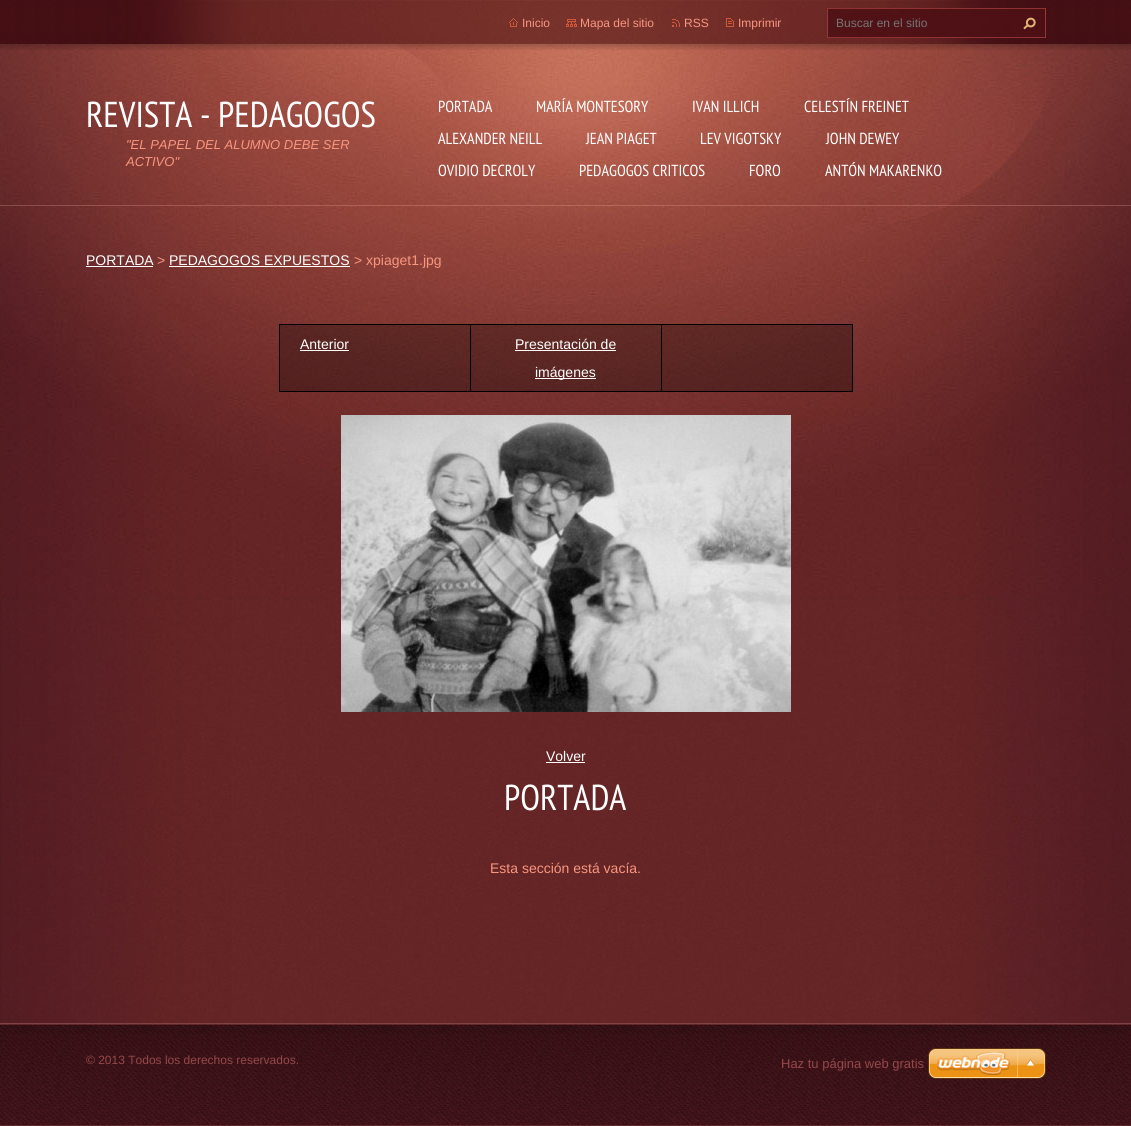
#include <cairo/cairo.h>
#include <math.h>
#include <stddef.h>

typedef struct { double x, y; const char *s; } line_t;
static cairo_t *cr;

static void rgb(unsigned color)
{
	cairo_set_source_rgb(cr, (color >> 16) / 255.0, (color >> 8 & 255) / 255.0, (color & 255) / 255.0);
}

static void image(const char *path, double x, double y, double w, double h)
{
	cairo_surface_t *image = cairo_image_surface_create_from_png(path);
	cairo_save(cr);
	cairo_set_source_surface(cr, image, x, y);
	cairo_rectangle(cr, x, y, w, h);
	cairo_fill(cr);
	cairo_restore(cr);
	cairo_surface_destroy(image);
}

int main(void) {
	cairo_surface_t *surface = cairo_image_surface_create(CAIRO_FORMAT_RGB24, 1131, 1126);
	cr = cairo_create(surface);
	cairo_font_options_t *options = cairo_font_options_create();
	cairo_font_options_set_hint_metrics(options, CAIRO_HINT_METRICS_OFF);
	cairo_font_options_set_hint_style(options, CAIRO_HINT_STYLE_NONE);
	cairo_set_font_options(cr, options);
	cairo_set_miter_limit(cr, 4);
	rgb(0x511b22);
	cairo_paint(cr);
	image("img/1.png", 2, 600, 1129, 423);
	image("img/2.png", 0, 44, 1131, 556);
	cairo_set_source_rgba(cr, 0.984, 0.714, 0.651, 0.26);
	cairo_rectangle(cr, 0, 205, 1131, 1);
	cairo_fill(cr);
	image("img/3.png", 0, 0, 1131, 50);
	image("img/4.png", 93, 0, 937, 44);
	image("img/5.png", 509, 18, 9, 9);
	image("img/6.png", 566, 19, 11, 8);
	image("img/7.png", 672, 19, 8, 8);
	image("img/8.png", 726, 18, 8, 9);
	image("img/9.png", 827, 8, 219, 30);
	image("img/10.png", 1023, 17, 13, 13);
	rgb(0xffffff);
	cairo_rectangle(cr, 86, 266, 67, 1);
	cairo_fill(cr);
	cairo_rectangle(cr, 169, 266, 181, 1);
	cairo_fill(cr);
	rgb(0x000000);
	cairo_rectangle(cr, 279, 324, 574, 1);
	cairo_fill(cr);
	cairo_rectangle(cr, 279, 324, 1, 68);
	cairo_fill(cr);
	cairo_set_source_rgba(cr, 0, 0, 0, 0.27);
	cairo_rectangle(cr, 280, 325, 190, 66);
	cairo_fill(cr);
	rgb(0x000000);
	cairo_rectangle(cr, 852, 324, 1, 68);
	cairo_fill(cr);
	cairo_rectangle(cr, 661, 391, 192, 1);
	cairo_fill(cr);
	cairo_rectangle(cr, 661, 324, 1, 68);
	cairo_fill(cr);
	cairo_rectangle(cr, 470, 391, 192, 1);
	cairo_fill(cr);
	cairo_rectangle(cr, 470, 324, 1, 68);
	cairo_fill(cr);
	cairo_rectangle(cr, 279, 391, 192, 1);
	cairo_fill(cr);
	rgb(0xffffff);
	cairo_rectangle(cr, 300, 350, 49, 1);
	cairo_fill(cr);
	cairo_set_source_rgba(cr, 0, 0, 0, 0.27);
	cairo_rectangle(cr, 471, 325, 190, 66);
	cairo_fill(cr);
	rgb(0xffffff);
	cairo_rectangle(cr, 515, 350, 101, 1);
	cairo_fill(cr);
	cairo_rectangle(cr, 535, 378, 61, 1);
	cairo_fill(cr);
	cairo_set_source_rgba(cr, 0, 0, 0, 0.27);
	cairo_rectangle(cr, 662, 325, 190, 66);
	cairo_fill(cr);
	image("img/11.png", 341, 415, 450, 297);
	rgb(0xffffff);
	cairo_rectangle(cr, 546, 762, 39, 1);
	cairo_fill(cr);
	image("img/12.png", 0, 1023, 1131, 103);
	image("img/13.png", 928, 1048, 118, 31);
	cairo_select_font_face(cr, "Liberation Sans", CAIRO_FONT_SLANT_NORMAL, CAIRO_FONT_WEIGHT_NORMAL);
	cairo_set_font_size(cr, 12);
	rgb(0xf9967f);
	{
		static const line_t items[] = {
			{522, 27, "Inicio"},
			{580, 27, "Mapa del sitio"},
			{684, 27, "RSS"},
			{738, 27, "Imprimir"},
		};
		for (size_t i = 0; i < sizeof items / sizeof *items; i++) {
			cairo_move_to(cr, items[i].x, items[i].y);
			cairo_show_text(cr, items[i].s);
		}
	}
	rgb(0x757575);
	cairo_move_to(cr, 836, 27);
	cairo_show_text(cr, "Buscar en el sitio");
	cairo_select_font_face(cr, "PT Sans Narrow", CAIRO_FONT_SLANT_NORMAL, CAIRO_FONT_WEIGHT_NORMAL);
	cairo_set_font_size(cr, 36);
	rgb(0xffffff);
	cairo_move_to(cr, 86, 127);
	cairo_show_text(cr, "REVISTA - PEDAGOGOS");
	cairo_select_font_face(cr, "Liberation Sans", CAIRO_FONT_SLANT_ITALIC, CAIRO_FONT_WEIGHT_NORMAL);
	cairo_set_font_size(cr, 13);
	rgb(0xf9967f);
	cairo_move_to(cr, 126, 149);
	cairo_show_text(cr, "\"EL PAPEL DEL ALUMNO DEBE SER");
	cairo_move_to(cr, 126, 166);
	cairo_show_text(cr, "ACTIVO\"");
	cairo_select_font_face(cr, "PT Sans Narrow", CAIRO_FONT_SLANT_NORMAL, CAIRO_FONT_WEIGHT_NORMAL);
	cairo_set_font_size(cr, 16);
	rgb(0xffffff);
	{
		static const line_t items[] = {
			{438, 112, "PORTADA"},
			{536, 112, "MARÍA MONTESORY"},
			{692, 112, "IVAN ILLICH"},
			{804, 112, "CELESTÍN FREINET"},
			{438, 144, "ALEXANDER NEILL"},
			{586, 144, "JEAN PIAGET"},
			{700, 144, "LEV VIGOTSKY"},
			{826, 144, "JOHN DEWEY"},
			{438, 176, "OVIDIO DECROLY"},
			{579, 176, "PEDAGOGOS CRITICOS"},
			{749, 176, "FORO"},
			{825, 176, "ANTÓN MAKARENKO"},
		};
		for (size_t i = 0; i < sizeof items / sizeof *items; i++) {
			cairo_move_to(cr, items[i].x, items[i].y);
			cairo_show_text(cr, items[i].s);
		}
	}
	cairo_select_font_face(cr, "Liberation Sans", CAIRO_FONT_SLANT_NORMAL, CAIRO_FONT_WEIGHT_NORMAL);
	cairo_set_font_size(cr, 14);
	cairo_move_to(cr, 86, 265);
	cairo_show_text(cr, "PORTADA");
	rgb(0xf9967f);
	cairo_move_to(cr, 157, 265);
	cairo_show_text(cr, ">");
	rgb(0xffffff);
	cairo_move_to(cr, 169, 265);
	cairo_show_text(cr, "PEDAGOGOS EXPUESTOS");
	rgb(0xf9967f);
	cairo_move_to(cr, 354, 265);
	cairo_show_text(cr, "> xpiaget1.jpg");
	rgb(0xffffff);
	{
		static const line_t items[] = {
			{300, 349, "Anterior"},
			{515, 349, "Presentación de"},
			{535, 377, "imágenes"},
			{546, 761, "Volver"},
		};
		for (size_t i = 0; i < sizeof items / sizeof *items; i++) {
			cairo_move_to(cr, items[i].x, items[i].y);
			cairo_show_text(cr, items[i].s);
		}
	}
	cairo_select_font_face(cr, "PT Sans Narrow", CAIRO_FONT_SLANT_NORMAL, CAIRO_FONT_WEIGHT_NORMAL);
	cairo_set_font_size(cr, 36);
	cairo_move_to(cr, 504, 810);
	cairo_show_text(cr, "PORTADA");
	cairo_select_font_face(cr, "Liberation Sans", CAIRO_FONT_SLANT_NORMAL, CAIRO_FONT_WEIGHT_NORMAL);
	cairo_set_font_size(cr, 14);
	rgb(0xf9967f);
	cairo_move_to(cr, 490, 873);
	cairo_show_text(cr, "Esta sección está vacía.");
	cairo_save(cr);
	cairo_rectangle(cr, 86, 1023, 480, 103);
	cairo_clip(cr);
	cairo_set_font_size(cr, 12);
	rgb(0x954849);
	cairo_move_to(cr, 86, 1064);
	cairo_show_text(cr, "© 2013 Todos los derechos reservados.");
	cairo_restore(cr);
	cairo_set_font_size(cr, 13);
	rgb(0x954849);
	cairo_move_to(cr, 781, 1068);
	cairo_show_text(cr, "Haz tu página web gratis");
	cairo_surface_write_to_png(surface, "page.png");
	cairo_font_options_destroy(options);
	cairo_destroy(cr);
	cairo_surface_destroy(surface);
	return 0;
}
